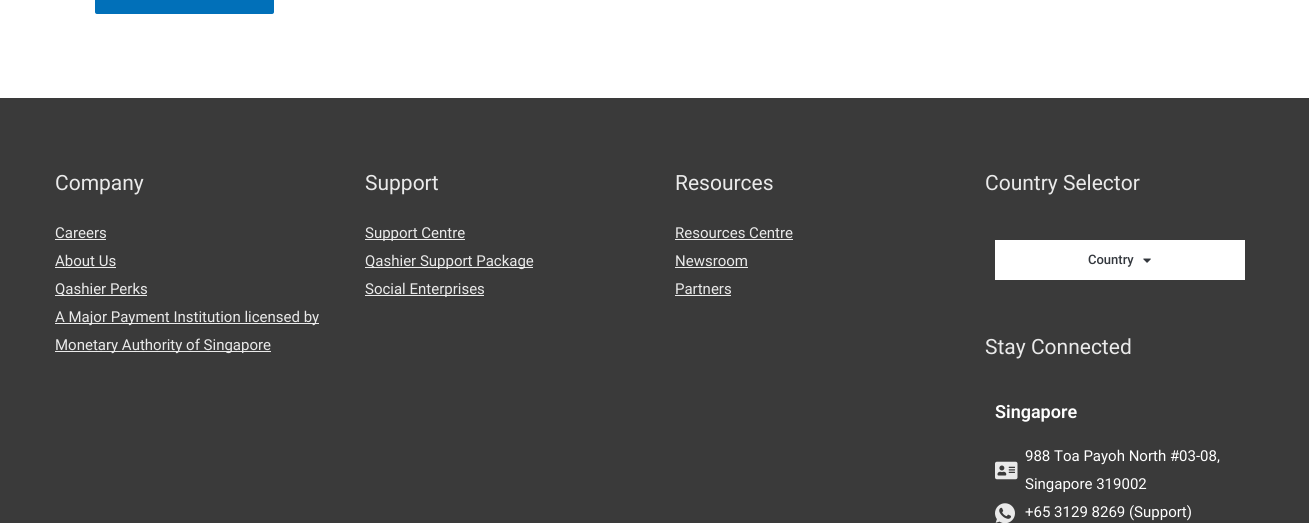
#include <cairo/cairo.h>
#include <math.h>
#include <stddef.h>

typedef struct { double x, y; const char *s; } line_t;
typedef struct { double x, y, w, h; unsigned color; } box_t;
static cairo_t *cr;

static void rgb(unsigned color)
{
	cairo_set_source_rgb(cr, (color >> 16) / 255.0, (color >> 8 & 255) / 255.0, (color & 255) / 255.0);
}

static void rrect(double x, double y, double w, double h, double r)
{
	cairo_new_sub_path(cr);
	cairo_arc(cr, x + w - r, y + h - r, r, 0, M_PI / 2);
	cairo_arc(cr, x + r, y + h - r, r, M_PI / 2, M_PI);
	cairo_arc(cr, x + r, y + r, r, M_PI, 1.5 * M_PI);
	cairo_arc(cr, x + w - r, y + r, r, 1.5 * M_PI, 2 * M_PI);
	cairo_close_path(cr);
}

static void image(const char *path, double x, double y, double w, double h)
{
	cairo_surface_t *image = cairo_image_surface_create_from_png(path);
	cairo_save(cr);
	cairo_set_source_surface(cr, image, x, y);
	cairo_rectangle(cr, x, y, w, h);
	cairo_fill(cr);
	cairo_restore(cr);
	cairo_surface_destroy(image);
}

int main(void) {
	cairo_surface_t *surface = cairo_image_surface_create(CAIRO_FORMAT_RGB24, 1309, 523);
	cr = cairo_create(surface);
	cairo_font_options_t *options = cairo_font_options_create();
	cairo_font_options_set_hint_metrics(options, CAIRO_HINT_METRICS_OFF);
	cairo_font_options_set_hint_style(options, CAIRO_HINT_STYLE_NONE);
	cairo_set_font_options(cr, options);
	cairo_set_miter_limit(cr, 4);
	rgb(0xffffff);
	cairo_paint(cr);
	rgb(0x0170b9);
	rrect(95, -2, 179, 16, 2);
	cairo_fill(cr);
	{
		static const box_t items[] = {
			{0, 98, 1309, 425, 0x3a3a3a},
			{55, 239, 51, 1, 0xeaeaea},
			{55, 267, 61, 1, 0xeaeaea},
			{55, 295, 92, 1, 0xeaeaea},
			{55, 323, 264, 1, 0xeaeaea},
			{55, 351, 216, 1, 0xeaeaea},
			{365, 239, 100, 1, 0xeaeaea},
			{365, 267, 168, 1, 0xeaeaea},
			{365, 295, 119, 1, 0xeaeaea},
			{675, 239, 118, 1, 0xeaeaea},
			{675, 267, 73, 1, 0xeaeaea},
			{675, 295, 56, 1, 0xeaeaea},
			{995, 240, 250, 40, 0xffffff},
		};
		for (size_t i = 0; i < sizeof items / sizeof *items; i++) {
			rgb(items[i].color);
			cairo_rectangle(cr, items[i].x, items[i].y, items[i].w, items[i].h);
			cairo_fill(cr);
		}
	}
	image("img/1.png", 1143, 258, 8, 5);
	image("img/2.png", 995, 461, 23, 19);
	image("img/3.png", 995, 503, 20, 20);
	cairo_select_font_face(cr, "Roboto", CAIRO_FONT_SLANT_NORMAL, CAIRO_FONT_WEIGHT_NORMAL);
	cairo_set_font_size(cr, 21);
	rgb(0xeaeaea);
	cairo_move_to(cr, 55, 190);
	cairo_show_text(cr, "Company");
	cairo_set_font_size(cr, 15);
	{
		static const line_t items[] = {
			{55, 238, "Careers"},
			{55, 266, "About Us"},
			{55, 294, "Qashier Perks"},
			{55, 322, "A Major Payment Institution licensed by"},
			{55, 350, "Monetary Authority of Singapore"},
		};
		for (size_t i = 0; i < sizeof items / sizeof *items; i++) {
			cairo_move_to(cr, items[i].x, items[i].y);
			cairo_show_text(cr, items[i].s);
		}
	}
	cairo_set_font_size(cr, 21);
	cairo_move_to(cr, 365, 190);
	cairo_show_text(cr, "Support");
	cairo_set_font_size(cr, 15);
	{
		static const line_t items[] = {
			{365, 238, "Support Centre"},
			{365, 266, "Qashier Support Package"},
			{365, 294, "Social Enterprises"},
		};
		for (size_t i = 0; i < sizeof items / sizeof *items; i++) {
			cairo_move_to(cr, items[i].x, items[i].y);
			cairo_show_text(cr, items[i].s);
		}
	}
	cairo_set_font_size(cr, 21);
	cairo_move_to(cr, 675, 190);
	cairo_show_text(cr, "Resources");
	cairo_set_font_size(cr, 15);
	{
		static const line_t items[] = {
			{675, 238, "Resources Centre"},
			{675, 266, "Newsroom"},
			{675, 294, "Partners"},
		};
		for (size_t i = 0; i < sizeof items / sizeof *items; i++) {
			cairo_move_to(cr, items[i].x, items[i].y);
			cairo_show_text(cr, items[i].s);
		}
	}
	cairo_set_font_size(cr, 21);
	cairo_move_to(cr, 985, 190);
	cairo_show_text(cr, "Country Selector");
	cairo_select_font_face(cr, "Roboto Medium", CAIRO_FONT_SLANT_NORMAL, CAIRO_FONT_WEIGHT_NORMAL);
	cairo_set_font_size(cr, 13);
	rgb(0x33373d);
	cairo_move_to(cr, 1088, 264);
	cairo_show_text(cr, "Country");
	cairo_select_font_face(cr, "Roboto", CAIRO_FONT_SLANT_NORMAL, CAIRO_FONT_WEIGHT_NORMAL);
	cairo_set_font_size(cr, 21);
	rgb(0xeaeaea);
	cairo_move_to(cr, 985, 354);
	cairo_show_text(cr, "Stay Connected");
	cairo_select_font_face(cr, "Roboto SemiBold", CAIRO_FONT_SLANT_NORMAL, CAIRO_FONT_WEIGHT_NORMAL);
	cairo_set_font_size(cr, 18);
	rgb(0xffffff);
	cairo_move_to(cr, 995, 418);
	cairo_show_text(cr, "Singapore");
	cairo_select_font_face(cr, "Roboto", CAIRO_FONT_SLANT_NORMAL, CAIRO_FONT_WEIGHT_NORMAL);
	cairo_set_font_size(cr, 15);
	{
		static const line_t items[] = {
			{1025, 461, "988 Toa Payoh North #03-08,"},
			{1025, 489, "Singapore 319002"},
			{1025, 517, "+65 3129 8269 (Support)"},
		};
		for (size_t i = 0; i < sizeof items / sizeof *items; i++) {
			cairo_move_to(cr, items[i].x, items[i].y);
			cairo_show_text(cr, items[i].s);
		}
	}
	cairo_surface_write_to_png(surface, "page.png");
	cairo_font_options_destroy(options);
	cairo_destroy(cr);
	cairo_surface_destroy(surface);
	return 0;
}
